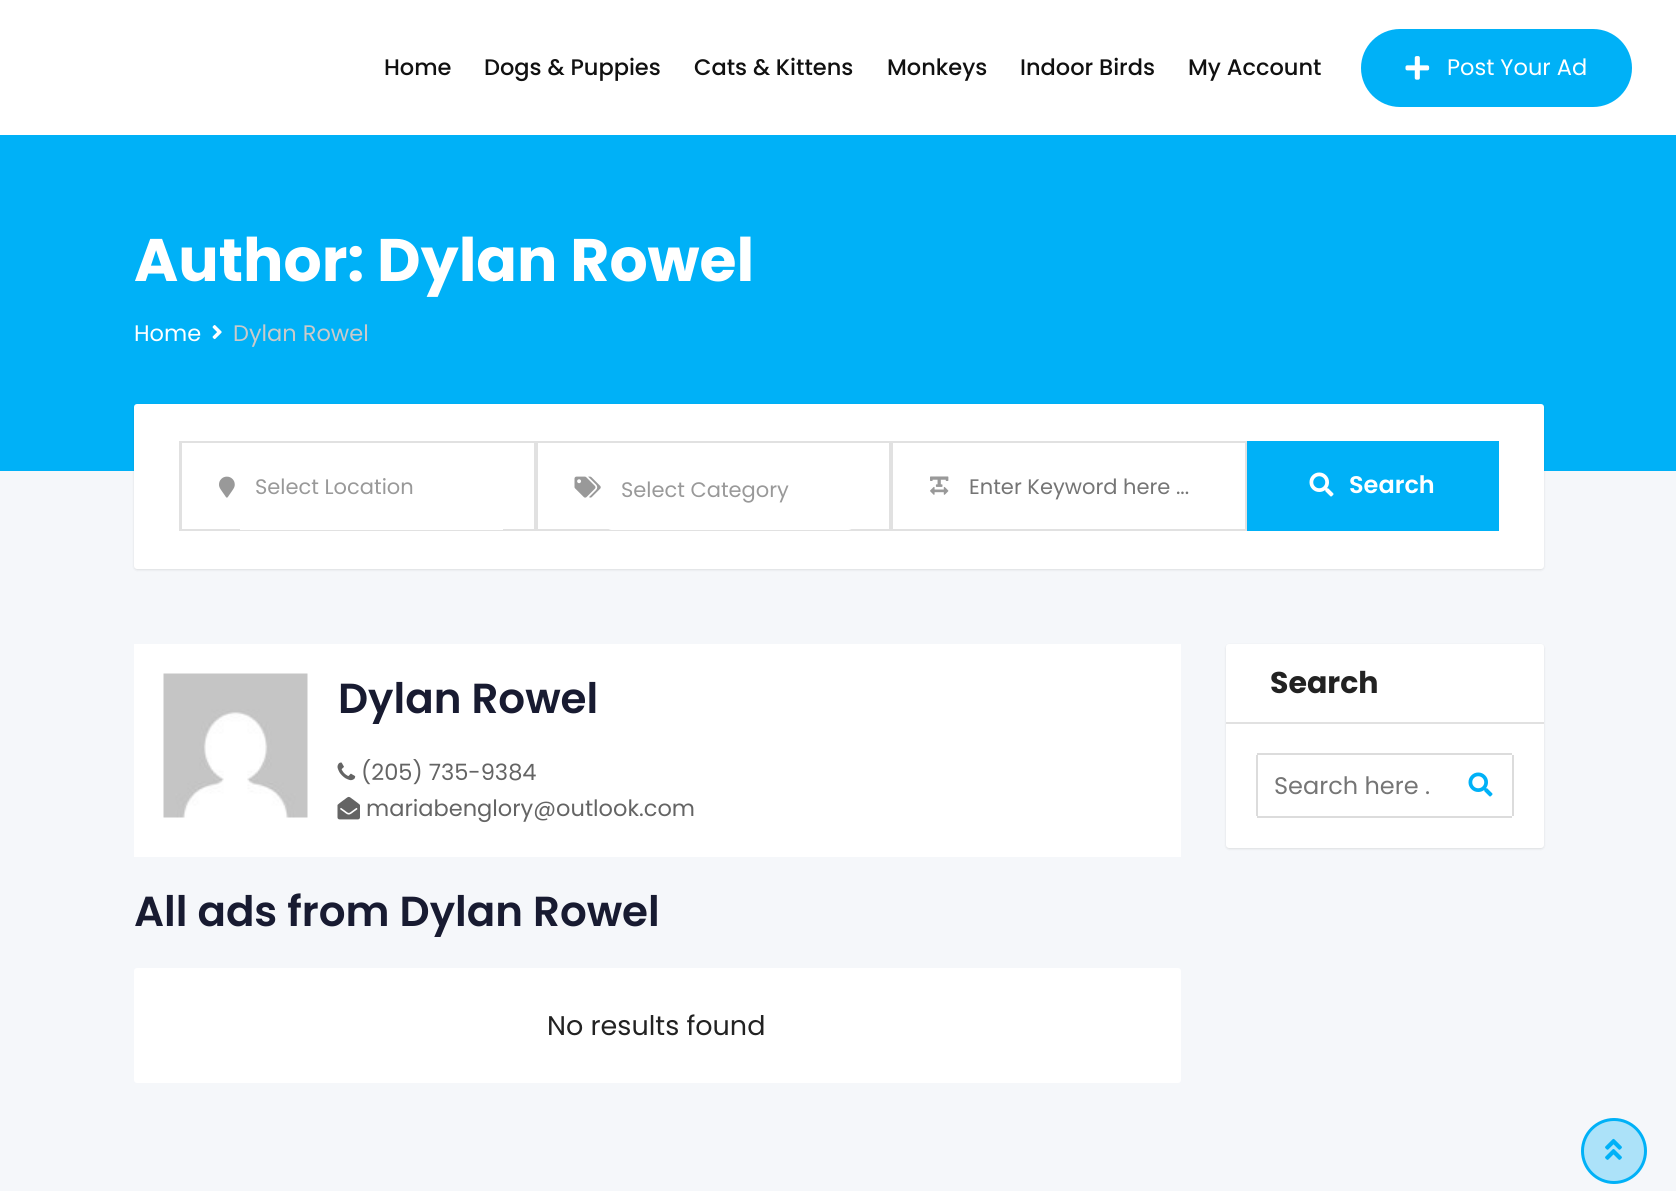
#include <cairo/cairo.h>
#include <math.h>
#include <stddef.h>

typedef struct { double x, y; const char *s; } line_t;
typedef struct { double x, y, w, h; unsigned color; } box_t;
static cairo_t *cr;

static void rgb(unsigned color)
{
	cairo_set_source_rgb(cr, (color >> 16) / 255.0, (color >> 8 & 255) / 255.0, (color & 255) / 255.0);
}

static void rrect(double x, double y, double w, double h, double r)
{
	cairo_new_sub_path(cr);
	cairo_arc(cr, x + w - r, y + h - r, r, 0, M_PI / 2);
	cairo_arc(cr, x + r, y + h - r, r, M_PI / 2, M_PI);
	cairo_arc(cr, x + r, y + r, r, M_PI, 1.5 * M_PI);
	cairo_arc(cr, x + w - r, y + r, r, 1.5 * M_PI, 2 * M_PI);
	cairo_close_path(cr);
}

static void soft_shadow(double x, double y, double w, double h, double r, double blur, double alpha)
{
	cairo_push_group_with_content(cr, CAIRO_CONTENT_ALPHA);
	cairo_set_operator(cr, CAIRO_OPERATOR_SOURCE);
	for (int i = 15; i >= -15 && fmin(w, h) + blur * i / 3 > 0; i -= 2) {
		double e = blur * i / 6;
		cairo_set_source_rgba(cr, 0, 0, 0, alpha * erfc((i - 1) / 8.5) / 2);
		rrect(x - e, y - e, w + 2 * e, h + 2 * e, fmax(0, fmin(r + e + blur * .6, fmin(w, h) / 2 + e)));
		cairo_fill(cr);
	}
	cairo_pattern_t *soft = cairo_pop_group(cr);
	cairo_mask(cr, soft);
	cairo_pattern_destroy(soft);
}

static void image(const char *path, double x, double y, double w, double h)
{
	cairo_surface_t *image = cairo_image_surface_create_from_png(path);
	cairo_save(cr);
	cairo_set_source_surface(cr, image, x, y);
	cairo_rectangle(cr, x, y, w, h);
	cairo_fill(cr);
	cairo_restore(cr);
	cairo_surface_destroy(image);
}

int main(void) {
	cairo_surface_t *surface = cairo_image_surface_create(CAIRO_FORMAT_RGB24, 1676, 1191);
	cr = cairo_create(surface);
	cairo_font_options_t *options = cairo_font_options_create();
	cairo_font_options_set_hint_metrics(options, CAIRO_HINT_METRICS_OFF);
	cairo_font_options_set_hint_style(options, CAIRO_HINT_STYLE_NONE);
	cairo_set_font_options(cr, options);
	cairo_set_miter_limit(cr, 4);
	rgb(0xffffff);
	cairo_paint(cr);
	rgb(0x00b1f7);
	rrect(1361, 29, 271, 78, 39);
	cairo_fill(cr);
	image("img/1.png", 1405, 56, 25, 24);
	rgb(0xf5f7fa);
	cairo_rectangle(cr, 0, 471, 1676, 720);
	cairo_fill(cr);
	rgb(0x00b1f7);
	cairo_rectangle(cr, 0, 135, 1676, 336);
	cairo_fill(cr);
	image("img/2.png", 212, 325, 10, 15);
	rgb(0x000000);
	soft_shadow(134, 405, 1410, 165, 3, 1, 0.1);
	rgb(0xffffff);
	rrect(134, 404, 1410, 165, 3);
	cairo_fill(cr);
	rgb(0xe1e1e1);
	cairo_rectangle(cr, 179, 441, 1, 90);
	cairo_fill(cr);
	cairo_rectangle(cr, 181, 442, 354, 88);
	cairo_stroke(cr);
	image("img/3.png", 219, 476, 16, 22);
	rgb(0xffffff);
	cairo_rectangle(cr, 240, 529, 263, 1);
	cairo_fill(cr);
	cairo_rectangle(cr, 537, 442, 353, 88);
	rgb(0xe1e1e1);
	cairo_stroke(cr);
	image("img/4.png", 574, 476, 27, 22);
	rgb(0xffffff);
	rrect(606, 443, 248, 87, 6);
	cairo_fill(cr);
	cairo_rectangle(cr, 892, 442, 354, 88);
	rgb(0xe1e1e1);
	cairo_stroke(cr);
	image("img/5.png", 930, 476, 19, 19);
	rgb(0x00b1f7);
	cairo_rectangle(cr, 1247, 441, 252, 90);
	cairo_fill(cr);
	image("img/6.png", 1309, 472, 25, 25);
	rgb(0xffffff);
	cairo_rectangle(cr, 134, 644, 1047, 213);
	cairo_fill(cr);
	image("img/7.png", 163, 673, 145, 145);
	image("img/8.png", 337, 762, 19, 19);
	image("img/9.png", 337, 796, 23, 24);
	rrect(134, 968, 1047, 115, 3);
	cairo_fill(cr);
	rgb(0x000000);
	soft_shadow(1226, 645, 318, 204, 3, 1, 0.1);
	rgb(0xffffff);
	rrect(1226, 644, 318, 204, 3);
	cairo_fill(cr);
	{
		static const box_t items[] = {
			{1226, 722, 318, 2, 0xe1e1e1},
			{1257, 753, 255, 2, 0xdcdcdc},
			{1512, 755, 2, 61, 0xdcdcdc},
			{1257, 816, 255, 2, 0xdcdcdc},
		};
		for (size_t i = 0; i < sizeof items / sizeof *items; i++) {
			rgb(items[i].color);
			cairo_rectangle(cr, items[i].x, items[i].y, items[i].w, items[i].h);
			cairo_fill(cr);
		}
	}
	image("img/10.png", 1468, 772, 25, 25);
	cairo_rectangle(cr, 1256, 755, 2, 61);
	cairo_fill(cr);
	rgb(0xace2f9);
	cairo_arc(cr, 1614, 1151, 31.5, 0, 2 * M_PI);
	cairo_fill_preserve(cr);
	rgb(0x00b1f7);
	cairo_set_line_width(cr, 3);
	cairo_stroke(cr);
	image("img/11.png", 1605, 1138, 17, 22);
	cairo_select_font_face(cr, "Poppins Medium", CAIRO_FONT_SLANT_NORMAL, CAIRO_FONT_WEIGHT_NORMAL);
	cairo_set_font_size(cr, 22.5);
	rgb(0x111111);
	{
		static const line_t items[] = {
			{384, 75, "Home"},
			{484, 75, "Dogs & Puppies"},
			{694, 75, "Cats & Kittens"},
			{887, 75, "Monkeys"},
			{1020, 75, "Indoor Birds"},
			{1188, 75, "My Account"},
		};
		for (size_t i = 0; i < sizeof items / sizeof *items; i++) {
			cairo_move_to(cr, items[i].x, items[i].y);
			cairo_show_text(cr, items[i].s);
		}
	}
	cairo_select_font_face(cr, "Poppins", CAIRO_FONT_SLANT_NORMAL, CAIRO_FONT_WEIGHT_NORMAL);
	rgb(0xffffff);
	cairo_move_to(cr, 1447, 75);
	cairo_show_text(cr, "Post Your Ad");
	cairo_select_font_face(cr, "Poppins", CAIRO_FONT_SLANT_NORMAL, CAIRO_FONT_WEIGHT_BOLD);
	cairo_set_font_size(cr, 60);
	cairo_move_to(cr, 134, 281);
	cairo_show_text(cr, "Author: Dylan Rowel");
	cairo_select_font_face(cr, "Poppins", CAIRO_FONT_SLANT_NORMAL, CAIRO_FONT_WEIGHT_NORMAL);
	cairo_set_font_size(cr, 22.5);
	cairo_move_to(cr, 134, 341);
	cairo_show_text(cr, "Home");
	rgb(0xcacaca);
	cairo_move_to(cr, 233, 341);
	cairo_show_text(cr, "Dylan Rowel");
	cairo_set_font_size(cr, 21);
	rgb(0x999999);
	cairo_move_to(cr, 255, 494);
	cairo_show_text(cr, "Select Location");
	cairo_move_to(cr, 621, 497);
	cairo_show_text(cr, "Select Category");
	rgb(0x757575);
	cairo_move_to(cr, 969, 494);
	cairo_show_text(cr, "Enter Keyword here ...");
	cairo_select_font_face(cr, "Poppins SemiBold", CAIRO_FONT_SLANT_NORMAL, CAIRO_FONT_WEIGHT_NORMAL);
	cairo_set_font_size(cr, 24);
	rgb(0xffffff);
	cairo_move_to(cr, 1349, 493);
	cairo_show_text(cr, "Search");
	cairo_set_font_size(cr, 42);
	rgb(0x181b31);
	cairo_move_to(cr, 338, 713);
	cairo_show_text(cr, "Dylan Rowel");
	cairo_select_font_face(cr, "Poppins", CAIRO_FONT_SLANT_NORMAL, CAIRO_FONT_WEIGHT_NORMAL);
	cairo_set_font_size(cr, 22.5);
	rgb(0x646464);
	cairo_move_to(cr, 361, 780);
	cairo_show_text(cr, "(205) 735-9384");
	cairo_move_to(cr, 366, 816);
	cairo_show_text(cr, "mariabenglory@outlook.com");
	cairo_select_font_face(cr, "Poppins SemiBold", CAIRO_FONT_SLANT_NORMAL, CAIRO_FONT_WEIGHT_NORMAL);
	cairo_set_font_size(cr, 42);
	rgb(0x181b31);
	cairo_move_to(cr, 134, 926);
	cairo_show_text(cr, "All ads from Dylan Rowel");
	cairo_select_font_face(cr, "Poppins", CAIRO_FONT_SLANT_NORMAL, CAIRO_FONT_WEIGHT_NORMAL);
	cairo_set_font_size(cr, 27);
	rgb(0x222222);
	cairo_move_to(cr, 547, 1035);
	cairo_show_text(cr, "No results found");
	cairo_select_font_face(cr, "Poppins", CAIRO_FONT_SLANT_NORMAL, CAIRO_FONT_WEIGHT_BOLD);
	cairo_set_font_size(cr, 30);
	cairo_move_to(cr, 1270, 693);
	cairo_show_text(cr, "Search");
	cairo_select_font_face(cr, "Poppins", CAIRO_FONT_SLANT_NORMAL, CAIRO_FONT_WEIGHT_NORMAL);
	cairo_set_font_size(cr, 24);
	rgb(0x757575);
	cairo_move_to(cr, 1274, 794);
	cairo_show_text(cr, "Search here .");
	cairo_surface_write_to_png(surface, "page.png");
	cairo_font_options_destroy(options);
	cairo_destroy(cr);
	cairo_surface_destroy(surface);
	return 0;
}
